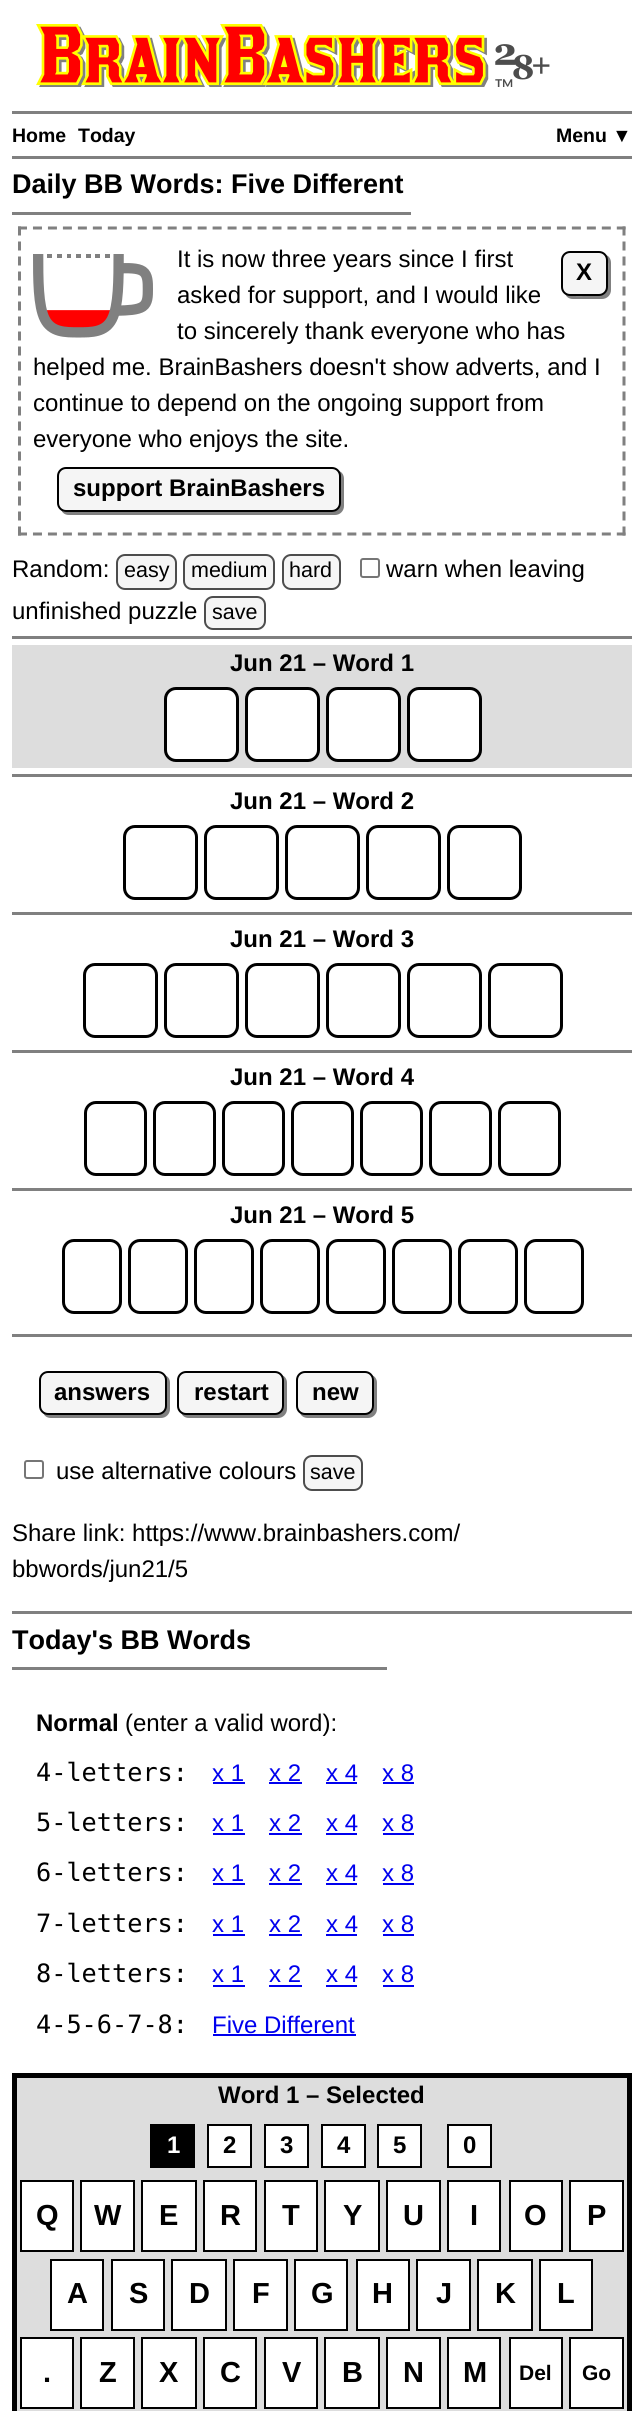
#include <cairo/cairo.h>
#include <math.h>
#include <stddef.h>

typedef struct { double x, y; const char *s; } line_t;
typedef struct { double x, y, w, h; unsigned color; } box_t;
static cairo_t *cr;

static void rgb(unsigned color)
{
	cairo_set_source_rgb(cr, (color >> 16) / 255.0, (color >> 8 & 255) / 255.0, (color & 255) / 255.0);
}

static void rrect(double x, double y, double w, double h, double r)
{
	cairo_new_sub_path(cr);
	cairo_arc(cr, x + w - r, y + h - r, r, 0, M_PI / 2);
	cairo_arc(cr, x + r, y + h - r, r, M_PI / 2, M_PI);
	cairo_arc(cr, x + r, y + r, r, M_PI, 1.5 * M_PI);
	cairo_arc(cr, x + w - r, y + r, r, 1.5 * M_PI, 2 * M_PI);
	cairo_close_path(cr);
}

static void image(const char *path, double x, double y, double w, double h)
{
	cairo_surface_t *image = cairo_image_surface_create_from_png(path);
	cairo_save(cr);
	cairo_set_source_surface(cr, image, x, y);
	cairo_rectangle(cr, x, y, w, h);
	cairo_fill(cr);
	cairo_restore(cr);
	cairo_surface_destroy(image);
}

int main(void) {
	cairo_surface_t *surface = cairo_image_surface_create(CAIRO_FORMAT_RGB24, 643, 2411);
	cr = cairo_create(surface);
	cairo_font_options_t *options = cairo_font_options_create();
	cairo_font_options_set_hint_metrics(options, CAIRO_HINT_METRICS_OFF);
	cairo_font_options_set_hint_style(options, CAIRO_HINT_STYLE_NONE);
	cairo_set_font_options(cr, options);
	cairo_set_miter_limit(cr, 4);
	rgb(0xffffff);
	cairo_paint(cr);
	image("img/1.png", 36, 24, 514, 63);
	{
		static const box_t items[] = {
			{12, 111, 620, 3, 0x808080},
			{12, 156, 620, 3, 0x808080},
			{12, 212, 399, 3, 0x808080},
		};
		for (size_t i = 0; i < sizeof items / sizeof *items; i++) {
			rgb(items[i].color);
			cairo_rectangle(cr, items[i].x, items[i].y, items[i].w, items[i].h);
			cairo_fill(cr);
		}
	}
	cairo_new_path(cr);
	cairo_move_to(cr, 18, 228);
	cairo_line_to(cr, 625.5, 228);
	cairo_set_line_width(cr, 3);
	cairo_set_dash(cr, (double[]){9, 5.97}, 2, 0);
	cairo_stroke(cr);
	cairo_new_path(cr);
	cairo_move_to(cr, 624, 226.5);
	cairo_line_to(cr, 624, 535.5);
	cairo_set_dash(cr, (double[]){9, 6}, 2, 0);
	cairo_stroke(cr);
	cairo_new_path(cr);
	cairo_move_to(cr, 18, 534);
	cairo_line_to(cr, 625.5, 534);
	cairo_set_dash(cr, (double[]){9, 5.97}, 2, 0);
	cairo_stroke(cr);
	cairo_new_path(cr);
	cairo_move_to(cr, 19.5, 226.5);
	cairo_line_to(cr, 19.5, 535.5);
	cairo_set_dash(cr, (double[]){9, 6}, 2, 0);
	cairo_stroke(cr);
	image("img/2.png", 33, 254, 120, 84);
	cairo_new_path(cr);
	cairo_move_to(cr, 565, 293);
	cairo_curve_to(cr, 566, 297, 569, 299, 573, 299);
	cairo_line_to(cr, 602, 299);
	cairo_curve_to(cr, 607, 299, 611, 295, 611, 290);
	cairo_line_to(cr, 611, 263);
	cairo_curve_to(cr, 611, 259, 609, 256, 606, 255);
	cairo_curve_to(cr, 609, 260, 608, 268, 608, 273);
	cairo_curve_to(cr, 608, 296, 608, 296, 584, 296);
	cairo_curve_to(cr, 579, 296, 569, 297, 565, 293);
	cairo_close_path(cr);
	cairo_fill(cr);
	rgb(0xf5f5f5);
	rrect(562, 252, 45, 43, 8);
	cairo_fill_preserve(cr);
	rgb(0x000000);
	cairo_set_line_width(cr, 2);
	cairo_set_dash(cr, NULL, 0, 0);
	cairo_stroke(cr);
	rgb(0x808080);
	cairo_new_path(cr);
	cairo_move_to(cr, 61, 509);
	cairo_curve_to(cr, 62, 513, 65, 515, 69, 515);
	cairo_line_to(cr, 335, 515);
	cairo_curve_to(cr, 340, 515, 344, 511, 344, 506);
	cairo_line_to(cr, 344, 479);
	cairo_curve_to(cr, 344, 475, 342, 472, 339, 471);
	cairo_curve_to(cr, 340, 472, 340, 474, 340, 476);
	cairo_line_to(cr, 340, 502);
	cairo_curve_to(cr, 340, 507, 336, 512, 331, 512);
	cairo_line_to(cr, 67, 512);
	cairo_curve_to(cr, 64, 512, 62, 511, 61, 509);
	cairo_close_path(cr);
	cairo_fill(cr);
	rgb(0xf5f5f5);
	rrect(58, 468, 282, 43, 8);
	cairo_fill_preserve(cr);
	rgb(0x000000);
	cairo_stroke(cr);
	rrect(361, 559, 18, 18, 2);
	rgb(0x767676);
	cairo_stroke(cr);
	rgb(0xf5f5f5);
	rrect(205, 597, 60, 32, 8);
	cairo_fill_preserve(cr);
	rgb(0x4d4d4d);
	cairo_stroke(cr);
	rgb(0xf5f5f5);
	rrect(117, 555, 59, 34, 8);
	cairo_fill_preserve(cr);
	rgb(0x4d4d4d);
	cairo_stroke(cr);
	rgb(0xf5f5f5);
	rrect(184, 555, 90, 34, 8);
	cairo_fill_preserve(cr);
	rgb(0x4d4d4d);
	cairo_stroke(cr);
	rgb(0xf5f5f5);
	rrect(283, 555, 57, 34, 8);
	cairo_fill_preserve(cr);
	rgb(0x4d4d4d);
	cairo_stroke(cr);
	rgb(0x808080);
	cairo_rectangle(cr, 12, 636, 620, 3);
	cairo_fill(cr);
	rgb(0xdddddd);
	cairo_rectangle(cr, 12, 645, 620, 123);
	cairo_fill(cr);
	rgb(0xffffff);
	rrect(165.5, 688.5, 72, 72, 10.5);
	cairo_fill_preserve(cr);
	rgb(0x000000);
	cairo_set_line_width(cr, 3);
	cairo_stroke(cr);
	rgb(0xffffff);
	rrect(246.5, 688.5, 72, 72, 10.5);
	cairo_fill_preserve(cr);
	rgb(0x000000);
	cairo_stroke(cr);
	rgb(0xffffff);
	rrect(327.5, 688.5, 72, 72, 10.5);
	cairo_fill_preserve(cr);
	rgb(0x000000);
	cairo_stroke(cr);
	rgb(0xffffff);
	rrect(408.5, 688.5, 72, 72, 10.5);
	cairo_fill_preserve(cr);
	rgb(0x000000);
	cairo_stroke(cr);
	rgb(0x808080);
	cairo_rectangle(cr, 12, 774, 620, 3);
	cairo_fill(cr);
	rrect(124.5, 826.5, 72, 72, 10.5);
	rgb(0x000000);
	cairo_stroke(cr);
	rrect(205.5, 826.5, 72, 72, 10.5);
	cairo_stroke(cr);
	rrect(286.5, 826.5, 72, 72, 10.5);
	cairo_stroke(cr);
	rrect(367.5, 826.5, 72, 72, 10.5);
	cairo_stroke(cr);
	rrect(448.5, 826.5, 72, 72, 10.5);
	cairo_stroke(cr);
	rgb(0x808080);
	cairo_rectangle(cr, 12, 912, 620, 3);
	cairo_fill(cr);
	rrect(84.5, 964.5, 72, 72, 10.5);
	rgb(0x000000);
	cairo_stroke(cr);
	rrect(165.5, 964.5, 72, 72, 10.5);
	cairo_stroke(cr);
	rrect(246.5, 964.5, 72, 72, 10.5);
	cairo_stroke(cr);
	rrect(327.5, 964.5, 72, 72, 10.5);
	cairo_stroke(cr);
	rrect(408.5, 964.5, 72, 72, 10.5);
	cairo_stroke(cr);
	rrect(489.5, 964.5, 72, 72, 10.5);
	cairo_stroke(cr);
	rgb(0x808080);
	cairo_rectangle(cr, 12, 1050, 620, 3);
	cairo_fill(cr);
	rrect(85.5, 1102.5, 60, 72, 10.5);
	rgb(0x000000);
	cairo_stroke(cr);
	rrect(154.5, 1102.5, 60, 72, 10.5);
	cairo_stroke(cr);
	rrect(223.5, 1102.5, 60, 72, 10.5);
	cairo_stroke(cr);
	rrect(292.5, 1102.5, 60, 72, 10.5);
	cairo_stroke(cr);
	rrect(361.5, 1102.5, 60, 72, 10.5);
	cairo_stroke(cr);
	rrect(430.5, 1102.5, 60, 72, 10.5);
	cairo_stroke(cr);
	rrect(499.5, 1102.5, 60, 72, 10.5);
	cairo_stroke(cr);
	rgb(0x808080);
	cairo_rectangle(cr, 12, 1188, 620, 3);
	cairo_fill(cr);
	rrect(63.5, 1240.5, 57, 72, 10.5);
	rgb(0x000000);
	cairo_stroke(cr);
	rrect(129.5, 1240.5, 57, 72, 10.5);
	cairo_stroke(cr);
	rrect(195.5, 1240.5, 57, 72, 10.5);
	cairo_stroke(cr);
	rrect(261.5, 1240.5, 57, 72, 10.5);
	cairo_stroke(cr);
	rrect(327.5, 1240.5, 57, 72, 10.5);
	cairo_stroke(cr);
	rrect(393.5, 1240.5, 57, 72, 10.5);
	cairo_stroke(cr);
	rrect(459.5, 1240.5, 57, 72, 10.5);
	cairo_stroke(cr);
	rrect(525.5, 1240.5, 57, 72, 10.5);
	cairo_stroke(cr);
	rgb(0x808080);
	cairo_rectangle(cr, 12, 1334, 620, 3);
	cairo_fill(cr);
	cairo_new_path(cr);
	cairo_move_to(cr, 43, 1412);
	cairo_curve_to(cr, 44, 1416, 47, 1418, 51, 1418);
	cairo_line_to(cr, 161, 1418);
	cairo_curve_to(cr, 166, 1418, 170, 1414, 170, 1409);
	cairo_line_to(cr, 170, 1383);
	cairo_curve_to(cr, 170, 1379, 168, 1376, 164, 1375);
	cairo_curve_to(cr, 166, 1376, 166, 1378, 166, 1381);
	cairo_line_to(cr, 166, 1405);
	cairo_curve_to(cr, 166, 1410, 162, 1414, 157, 1414);
	cairo_line_to(cr, 49, 1414);
	cairo_curve_to(cr, 46, 1414, 44, 1414, 43, 1412);
	cairo_close_path(cr);
	cairo_fill(cr);
	rgb(0xf5f5f5);
	rrect(40, 1372, 126, 42, 8);
	cairo_fill_preserve(cr);
	rgb(0x000000);
	cairo_set_line_width(cr, 2);
	cairo_stroke(cr);
	rgb(0x808080);
	cairo_new_path(cr);
	cairo_move_to(cr, 181, 1412);
	cairo_curve_to(cr, 182, 1416, 185, 1418, 189, 1418);
	cairo_line_to(cr, 278, 1418);
	cairo_curve_to(cr, 283, 1418, 287, 1414, 287, 1409);
	cairo_line_to(cr, 287, 1383);
	cairo_curve_to(cr, 287, 1379, 285, 1376, 281, 1375);
	cairo_curve_to(cr, 283, 1376, 284, 1378, 284, 1381);
	cairo_line_to(cr, 284, 1405);
	cairo_curve_to(cr, 284, 1410, 279, 1414, 274, 1414);
	cairo_line_to(cr, 187, 1414);
	cairo_curve_to(cr, 184, 1414, 182, 1414, 181, 1412);
	cairo_close_path(cr);
	cairo_fill(cr);
	rgb(0xf5f5f5);
	rrect(178, 1372, 105, 42, 8);
	cairo_fill_preserve(cr);
	rgb(0x000000);
	cairo_stroke(cr);
	rgb(0x808080);
	cairo_new_path(cr);
	cairo_move_to(cr, 300, 1413);
	cairo_curve_to(cr, 301, 1416, 304, 1418, 308, 1418);
	cairo_line_to(cr, 368, 1418);
	cairo_curve_to(cr, 373, 1418, 377, 1414, 377, 1409);
	cairo_line_to(cr, 377, 1383);
	cairo_curve_to(cr, 377, 1379, 375, 1376, 371, 1375);
	cairo_curve_to(cr, 373, 1376, 374, 1378, 374, 1381);
	cairo_line_to(cr, 374, 1405);
	cairo_curve_to(cr, 374, 1410, 369, 1414, 364, 1414);
	cairo_line_to(cr, 305, 1414);
	cairo_curve_to(cr, 303, 1414, 301, 1414, 300, 1413);
	cairo_close_path(cr);
	cairo_fill(cr);
	rgb(0xf5f5f5);
	rrect(297, 1372, 76, 42, 8);
	cairo_fill_preserve(cr);
	rgb(0x000000);
	cairo_stroke(cr);
	rrect(25, 1461, 18, 17, 2);
	rgb(0x767676);
	cairo_stroke(cr);
	rgb(0xf5f5f5);
	rrect(304, 1456, 58, 34, 8);
	cairo_fill_preserve(cr);
	rgb(0x4d4d4d);
	cairo_stroke(cr);
	{
		static const box_t items[] = {
			{12, 1611, 620, 3, 0x808080},
			{12, 1667, 375, 3, 0x808080},
			{213, 1782, 32, 2, 0x0000ee},
			{269, 1782, 33, 2, 0x0000ee},
			{326, 1782, 31, 2, 0x0000ee},
			{383, 1782, 31, 2, 0x0000ee},
			{213, 1833, 32, 2, 0x0000ee},
			{269, 1833, 33, 2, 0x0000ee},
			{326, 1833, 31, 2, 0x0000ee},
			{383, 1833, 31, 2, 0x0000ee},
			{213, 1883, 32, 2, 0x0000ee},
			{269, 1883, 33, 2, 0x0000ee},
			{326, 1883, 31, 2, 0x0000ee},
			{383, 1883, 31, 2, 0x0000ee},
			{213, 1934, 32, 2, 0x0000ee},
			{269, 1934, 33, 2, 0x0000ee},
			{326, 1934, 31, 2, 0x0000ee},
			{383, 1934, 31, 2, 0x0000ee},
			{213, 1985, 32, 2, 0x0000ee},
			{269, 1985, 33, 2, 0x0000ee},
			{326, 1985, 31, 2, 0x0000ee},
			{383, 1985, 31, 2, 0x0000ee},
			{213, 2034, 143, 2, 0x0000ee},
			{12, 2073, 620, 5, 0x000000},
			{627, 2073, 5, 338, 0x000000},
			{12, 2073, 5, 338, 0x000000},
			{17, 2078, 610, 333, 0xdddddd},
			{150, 2124, 45, 44, 0x000000},
		};
		for (size_t i = 0; i < sizeof items / sizeof *items; i++) {
			rgb(items[i].color);
			cairo_rectangle(cr, items[i].x, items[i].y, items[i].w, items[i].h);
			cairo_fill(cr);
		}
	}
	rgb(0xffffff);
	cairo_rectangle(cr, 208, 2125, 43, 42);
	cairo_fill_preserve(cr);
	rgb(0x000000);
	cairo_stroke(cr);
	rgb(0xffffff);
	cairo_rectangle(cr, 265, 2125, 43, 42);
	cairo_fill_preserve(cr);
	rgb(0x000000);
	cairo_stroke(cr);
	rgb(0xffffff);
	cairo_rectangle(cr, 322, 2125, 43, 42);
	cairo_fill_preserve(cr);
	rgb(0x000000);
	cairo_stroke(cr);
	rgb(0xffffff);
	cairo_rectangle(cr, 378, 2125, 43, 42);
	cairo_fill_preserve(cr);
	rgb(0x000000);
	cairo_stroke(cr);
	rgb(0xffffff);
	cairo_rectangle(cr, 448, 2125, 43, 42);
	cairo_fill_preserve(cr);
	rgb(0x000000);
	cairo_stroke(cr);
	rgb(0xffffff);
	cairo_rectangle(cr, 21, 2181, 52, 70);
	cairo_fill_preserve(cr);
	rgb(0x000000);
	cairo_stroke(cr);
	rgb(0xffffff);
	cairo_rectangle(cr, 81, 2181, 53, 70);
	cairo_fill_preserve(cr);
	rgb(0x000000);
	cairo_stroke(cr);
	rgb(0xffffff);
	cairo_rectangle(cr, 142, 2181, 54, 70);
	cairo_fill_preserve(cr);
	rgb(0x000000);
	cairo_stroke(cr);
	rgb(0xffffff);
	cairo_rectangle(cr, 204, 2181, 52, 70);
	cairo_fill_preserve(cr);
	rgb(0x000000);
	cairo_stroke(cr);
	rgb(0xffffff);
	cairo_rectangle(cr, 265, 2181, 52, 70);
	cairo_fill_preserve(cr);
	rgb(0x000000);
	cairo_stroke(cr);
	rgb(0xffffff);
	cairo_rectangle(cr, 325, 2181, 54, 70);
	cairo_fill_preserve(cr);
	rgb(0x000000);
	cairo_stroke(cr);
	rgb(0xffffff);
	cairo_rectangle(cr, 387, 2181, 53, 70);
	cairo_fill_preserve(cr);
	rgb(0x000000);
	cairo_stroke(cr);
	rgb(0xffffff);
	cairo_rectangle(cr, 448, 2181, 52, 70);
	cairo_fill_preserve(cr);
	rgb(0x000000);
	cairo_stroke(cr);
	rgb(0xffffff);
	cairo_rectangle(cr, 510, 2181, 52, 70);
	cairo_fill_preserve(cr);
	rgb(0x000000);
	cairo_stroke(cr);
	rgb(0xffffff);
	cairo_rectangle(cr, 570, 2181, 53, 70);
	cairo_fill_preserve(cr);
	rgb(0x000000);
	cairo_stroke(cr);
	rgb(0xffffff);
	cairo_rectangle(cr, 51, 2260, 52, 70);
	cairo_fill_preserve(cr);
	rgb(0x000000);
	cairo_stroke(cr);
	rgb(0xffffff);
	cairo_rectangle(cr, 112, 2260, 52, 70);
	cairo_fill_preserve(cr);
	rgb(0x000000);
	cairo_stroke(cr);
	rgb(0xffffff);
	cairo_rectangle(cr, 172, 2260, 54, 70);
	cairo_fill_preserve(cr);
	rgb(0x000000);
	cairo_stroke(cr);
	rgb(0xffffff);
	cairo_rectangle(cr, 234, 2260, 53, 70);
	cairo_fill_preserve(cr);
	rgb(0x000000);
	cairo_stroke(cr);
	rgb(0xffffff);
	cairo_rectangle(cr, 295, 2260, 52, 70);
	cairo_fill_preserve(cr);
	rgb(0x000000);
	cairo_stroke(cr);
	rgb(0xffffff);
	cairo_rectangle(cr, 357, 2260, 52, 70);
	cairo_fill_preserve(cr);
	rgb(0x000000);
	cairo_stroke(cr);
	rgb(0xffffff);
	cairo_rectangle(cr, 417, 2260, 53, 70);
	cairo_fill_preserve(cr);
	rgb(0x000000);
	cairo_stroke(cr);
	rgb(0xffffff);
	cairo_rectangle(cr, 478, 2260, 54, 70);
	cairo_fill_preserve(cr);
	rgb(0x000000);
	cairo_stroke(cr);
	rgb(0xffffff);
	cairo_rectangle(cr, 540, 2260, 52, 70);
	cairo_fill_preserve(cr);
	rgb(0x000000);
	cairo_stroke(cr);
	rgb(0xffffff);
	cairo_rectangle(cr, 21, 2338, 52, 70);
	cairo_fill_preserve(cr);
	rgb(0x000000);
	cairo_stroke(cr);
	rgb(0xffffff);
	cairo_rectangle(cr, 81, 2338, 53, 70);
	cairo_fill_preserve(cr);
	rgb(0x000000);
	cairo_stroke(cr);
	rgb(0xffffff);
	cairo_rectangle(cr, 142, 2338, 54, 70);
	cairo_fill_preserve(cr);
	rgb(0x000000);
	cairo_stroke(cr);
	rgb(0xffffff);
	cairo_rectangle(cr, 204, 2338, 52, 70);
	cairo_fill_preserve(cr);
	rgb(0x000000);
	cairo_stroke(cr);
	rgb(0xffffff);
	cairo_rectangle(cr, 265, 2338, 52, 70);
	cairo_fill_preserve(cr);
	rgb(0x000000);
	cairo_stroke(cr);
	rgb(0xffffff);
	cairo_rectangle(cr, 325, 2338, 54, 70);
	cairo_fill_preserve(cr);
	rgb(0x000000);
	cairo_stroke(cr);
	rgb(0xffffff);
	cairo_rectangle(cr, 387, 2338, 53, 70);
	cairo_fill_preserve(cr);
	rgb(0x000000);
	cairo_stroke(cr);
	rgb(0xffffff);
	cairo_rectangle(cr, 448, 2338, 52, 70);
	cairo_fill_preserve(cr);
	rgb(0x000000);
	cairo_stroke(cr);
	rgb(0xffffff);
	cairo_rectangle(cr, 510, 2338, 52, 70);
	cairo_fill_preserve(cr);
	rgb(0x000000);
	cairo_stroke(cr);
	rgb(0xffffff);
	cairo_rectangle(cr, 570, 2338, 53, 70);
	cairo_fill_preserve(cr);
	rgb(0x000000);
	cairo_stroke(cr);
	cairo_select_font_face(cr, "Liberation Sans", CAIRO_FONT_SLANT_NORMAL, CAIRO_FONT_WEIGHT_BOLD);
	cairo_set_font_size(cr, 19.5);
	{
		static const line_t items[] = {
			{12, 142, "Home"},
			{78, 142, "Today"},
			{556, 142, "Menu ▼"},
		};
		for (size_t i = 0; i < sizeof items / sizeof *items; i++) {
			cairo_move_to(cr, items[i].x, items[i].y);
			cairo_show_text(cr, items[i].s);
		}
	}
	cairo_set_font_size(cr, 27);
	cairo_move_to(cr, 12, 193);
	cairo_show_text(cr, "Daily BB Words: Five Different");
	cairo_select_font_face(cr, "Liberation Sans", CAIRO_FONT_SLANT_NORMAL, CAIRO_FONT_WEIGHT_NORMAL);
	cairo_set_font_size(cr, 24);
	cairo_move_to(cr, 177, 267);
	cairo_show_text(cr, "It is now three years since I first");
	cairo_select_font_face(cr, "Liberation Sans", CAIRO_FONT_SLANT_NORMAL, CAIRO_FONT_WEIGHT_BOLD);
	cairo_move_to(cr, 576, 280);
	cairo_show_text(cr, "X");
	cairo_select_font_face(cr, "Liberation Sans", CAIRO_FONT_SLANT_NORMAL, CAIRO_FONT_WEIGHT_NORMAL);
	{
		static const line_t items[] = {
			{177, 303, "asked for support, and I would like"},
			{177, 339, "to sincerely thank everyone who has"},
			{33, 375, "helped me. BrainBashers doesn't show adverts, and I"},
			{33, 411, "continue to depend on the ongoing support from"},
			{33, 447, "everyone who enjoys the site."},
		};
		for (size_t i = 0; i < sizeof items / sizeof *items; i++) {
			cairo_move_to(cr, items[i].x, items[i].y);
			cairo_show_text(cr, items[i].s);
		}
	}
	cairo_select_font_face(cr, "Liberation Sans", CAIRO_FONT_SLANT_NORMAL, CAIRO_FONT_WEIGHT_BOLD);
	cairo_move_to(cr, 73, 496);
	cairo_show_text(cr, "support BrainBashers");
	cairo_select_font_face(cr, "Liberation Sans", CAIRO_FONT_SLANT_NORMAL, CAIRO_FONT_WEIGHT_NORMAL);
	{
		static const line_t items[] = {
			{12, 577, "Random:"},
			{386, 577, "warn when leaving"},
			{12, 619, "unfinished puzzle"},
		};
		for (size_t i = 0; i < sizeof items / sizeof *items; i++) {
			cairo_move_to(cr, items[i].x, items[i].y);
			cairo_show_text(cr, items[i].s);
		}
	}
	cairo_set_font_size(cr, 21.5);
	{
		static const line_t items[] = {
			{212, 619, "save"},
			{124, 577, "easy"},
			{191, 577, "medium"},
			{289, 577, "hard"},
		};
		for (size_t i = 0; i < sizeof items / sizeof *items; i++) {
			cairo_move_to(cr, items[i].x, items[i].y);
			cairo_show_text(cr, items[i].s);
		}
	}
	cairo_select_font_face(cr, "Liberation Sans", CAIRO_FONT_SLANT_NORMAL, CAIRO_FONT_WEIGHT_BOLD);
	cairo_set_font_size(cr, 24);
	{
		static const line_t items[] = {
			{230, 671, "Jun 21 – Word 1"},
			{230, 809, "Jun 21 – Word 2"},
			{230, 947, "Jun 21 – Word 3"},
			{230, 1085, "Jun 21 – Word 4"},
			{230, 1223, "Jun 21 – Word 5"},
			{54, 1400, "answers"},
			{194, 1400, "restart"},
			{312, 1400, "new"},
		};
		for (size_t i = 0; i < sizeof items / sizeof *items; i++) {
			cairo_move_to(cr, items[i].x, items[i].y);
			cairo_show_text(cr, items[i].s);
		}
	}
	cairo_select_font_face(cr, "Liberation Sans", CAIRO_FONT_SLANT_NORMAL, CAIRO_FONT_WEIGHT_NORMAL);
	cairo_move_to(cr, 56, 1479);
	cairo_show_text(cr, "use alternative colours");
	cairo_set_font_size(cr, 21.5);
	cairo_move_to(cr, 310, 1479);
	cairo_show_text(cr, "save");
	cairo_set_font_size(cr, 24);
	cairo_move_to(cr, 12, 1541);
	cairo_show_text(cr, "Share link: https://www.brainbashers.com/");
	cairo_move_to(cr, 12, 1577);
	cairo_show_text(cr, "bbwords/jun21/5");
	cairo_select_font_face(cr, "Liberation Sans", CAIRO_FONT_SLANT_NORMAL, CAIRO_FONT_WEIGHT_BOLD);
	cairo_set_font_size(cr, 27);
	cairo_move_to(cr, 12, 1649);
	cairo_show_text(cr, "Today's BB Words");
	cairo_set_font_size(cr, 24);
	cairo_move_to(cr, 36, 1731);
	cairo_show_text(cr, "Normal");
	cairo_select_font_face(cr, "Liberation Sans", CAIRO_FONT_SLANT_NORMAL, CAIRO_FONT_WEIGHT_NORMAL);
	cairo_move_to(cr, 125, 1731);
	cairo_show_text(cr, "(enter a valid word):");
	cairo_select_font_face(cr, "DejaVu Sans Mono", CAIRO_FONT_SLANT_NORMAL, CAIRO_FONT_WEIGHT_NORMAL);
	cairo_set_font_size(cr, 25.25);
	cairo_move_to(cr, 36, 1781);
	cairo_show_text(cr, "4-letters:");
	cairo_select_font_face(cr, "Liberation Sans", CAIRO_FONT_SLANT_NORMAL, CAIRO_FONT_WEIGHT_NORMAL);
	cairo_set_font_size(cr, 24);
	rgb(0x0000ee);
	{
		static const line_t items[] = {
			{212, 1781, "x 1"},
			{269, 1781, "x 2"},
			{326, 1781, "x 4"},
			{382, 1781, "x 8"},
		};
		for (size_t i = 0; i < sizeof items / sizeof *items; i++) {
			cairo_move_to(cr, items[i].x, items[i].y);
			cairo_show_text(cr, items[i].s);
		}
	}
	cairo_select_font_face(cr, "DejaVu Sans Mono", CAIRO_FONT_SLANT_NORMAL, CAIRO_FONT_WEIGHT_NORMAL);
	cairo_set_font_size(cr, 25.25);
	rgb(0x000000);
	cairo_move_to(cr, 36, 1831);
	cairo_show_text(cr, "5-letters:");
	cairo_select_font_face(cr, "Liberation Sans", CAIRO_FONT_SLANT_NORMAL, CAIRO_FONT_WEIGHT_NORMAL);
	cairo_set_font_size(cr, 24);
	rgb(0x0000ee);
	{
		static const line_t items[] = {
			{212, 1831, "x 1"},
			{269, 1831, "x 2"},
			{326, 1831, "x 4"},
			{382, 1831, "x 8"},
		};
		for (size_t i = 0; i < sizeof items / sizeof *items; i++) {
			cairo_move_to(cr, items[i].x, items[i].y);
			cairo_show_text(cr, items[i].s);
		}
	}
	cairo_select_font_face(cr, "DejaVu Sans Mono", CAIRO_FONT_SLANT_NORMAL, CAIRO_FONT_WEIGHT_NORMAL);
	cairo_set_font_size(cr, 25.25);
	rgb(0x000000);
	cairo_move_to(cr, 36, 1881);
	cairo_show_text(cr, "6-letters:");
	cairo_select_font_face(cr, "Liberation Sans", CAIRO_FONT_SLANT_NORMAL, CAIRO_FONT_WEIGHT_NORMAL);
	cairo_set_font_size(cr, 24);
	rgb(0x0000ee);
	{
		static const line_t items[] = {
			{212, 1881, "x 1"},
			{269, 1881, "x 2"},
			{326, 1881, "x 4"},
			{382, 1881, "x 8"},
		};
		for (size_t i = 0; i < sizeof items / sizeof *items; i++) {
			cairo_move_to(cr, items[i].x, items[i].y);
			cairo_show_text(cr, items[i].s);
		}
	}
	cairo_select_font_face(cr, "DejaVu Sans Mono", CAIRO_FONT_SLANT_NORMAL, CAIRO_FONT_WEIGHT_NORMAL);
	cairo_set_font_size(cr, 25.25);
	rgb(0x000000);
	cairo_move_to(cr, 36, 1932);
	cairo_show_text(cr, "7-letters:");
	cairo_select_font_face(cr, "Liberation Sans", CAIRO_FONT_SLANT_NORMAL, CAIRO_FONT_WEIGHT_NORMAL);
	cairo_set_font_size(cr, 24);
	rgb(0x0000ee);
	{
		static const line_t items[] = {
			{212, 1932, "x 1"},
			{269, 1932, "x 2"},
			{326, 1932, "x 4"},
			{382, 1932, "x 8"},
		};
		for (size_t i = 0; i < sizeof items / sizeof *items; i++) {
			cairo_move_to(cr, items[i].x, items[i].y);
			cairo_show_text(cr, items[i].s);
		}
	}
	cairo_select_font_face(cr, "DejaVu Sans Mono", CAIRO_FONT_SLANT_NORMAL, CAIRO_FONT_WEIGHT_NORMAL);
	cairo_set_font_size(cr, 25.25);
	rgb(0x000000);
	cairo_move_to(cr, 36, 1982);
	cairo_show_text(cr, "8-letters:");
	cairo_select_font_face(cr, "Liberation Sans", CAIRO_FONT_SLANT_NORMAL, CAIRO_FONT_WEIGHT_NORMAL);
	cairo_set_font_size(cr, 24);
	rgb(0x0000ee);
	{
		static const line_t items[] = {
			{212, 1982, "x 1"},
			{269, 1982, "x 2"},
			{326, 1982, "x 4"},
			{382, 1982, "x 8"},
		};
		for (size_t i = 0; i < sizeof items / sizeof *items; i++) {
			cairo_move_to(cr, items[i].x, items[i].y);
			cairo_show_text(cr, items[i].s);
		}
	}
	cairo_select_font_face(cr, "DejaVu Sans Mono", CAIRO_FONT_SLANT_NORMAL, CAIRO_FONT_WEIGHT_NORMAL);
	cairo_set_font_size(cr, 25.25);
	rgb(0x000000);
	cairo_move_to(cr, 36, 2033);
	cairo_show_text(cr, "4-5-6-7-8:");
	cairo_select_font_face(cr, "Liberation Sans", CAIRO_FONT_SLANT_NORMAL, CAIRO_FONT_WEIGHT_NORMAL);
	cairo_set_font_size(cr, 24);
	rgb(0x0000ee);
	cairo_move_to(cr, 212, 2033);
	cairo_show_text(cr, "Five Different");
	cairo_select_font_face(cr, "Liberation Sans", CAIRO_FONT_SLANT_NORMAL, CAIRO_FONT_WEIGHT_BOLD);
	rgb(0x000000);
	cairo_move_to(cr, 218, 2103);
	cairo_show_text(cr, "Word 1 – Selected");
	rgb(0xffffff);
	cairo_move_to(cr, 167, 2153);
	cairo_show_text(cr, "1");
	rgb(0x000000);
	{
		static const line_t items[] = {
			{223, 2153, "2"},
			{280, 2153, "3"},
			{337, 2153, "4"},
			{393, 2153, "5"},
			{463, 2153, "0"},
		};
		for (size_t i = 0; i < sizeof items / sizeof *items; i++) {
			cairo_move_to(cr, items[i].x, items[i].y);
			cairo_show_text(cr, items[i].s);
		}
	}
	cairo_set_font_size(cr, 29);
	{
		static const line_t items[] = {
			{36, 2225, "Q"},
			{94, 2225, "W"},
			{159, 2225, "E"},
			{220, 2225, "R"},
			{282, 2225, "T"},
			{343, 2225, "Y"},
			{403, 2225, "U"},
			{470, 2225, "I"},
			{524, 2225, "O"},
			{587, 2225, "P"},
			{67, 2303, "A"},
			{129, 2303, "S"},
			{189, 2303, "D"},
			{252, 2303, "F"},
			{311, 2303, "G"},
			{372, 2303, "H"},
			{436, 2303, "J"},
			{495, 2303, "K"},
			{557, 2303, "L"},
			{43, 2382, "."},
			{99, 2382, "Z"},
			{159, 2382, "X"},
			{220, 2382, "C"},
			{282, 2382, "V"},
			{342, 2382, "B"},
			{403, 2382, "N"},
			{463, 2382, "M"},
		};
		for (size_t i = 0; i < sizeof items / sizeof *items; i++) {
			cairo_move_to(cr, items[i].x, items[i].y);
			cairo_show_text(cr, items[i].s);
		}
	}
	cairo_set_font_size(cr, 21);
	cairo_move_to(cr, 519, 2380);
	cairo_show_text(cr, "Del");
	cairo_move_to(cr, 582, 2380);
	cairo_show_text(cr, "Go");
	cairo_surface_write_to_png(surface, "page.png");
	cairo_font_options_destroy(options);
	cairo_destroy(cr);
	cairo_surface_destroy(surface);
	return 0;
}
